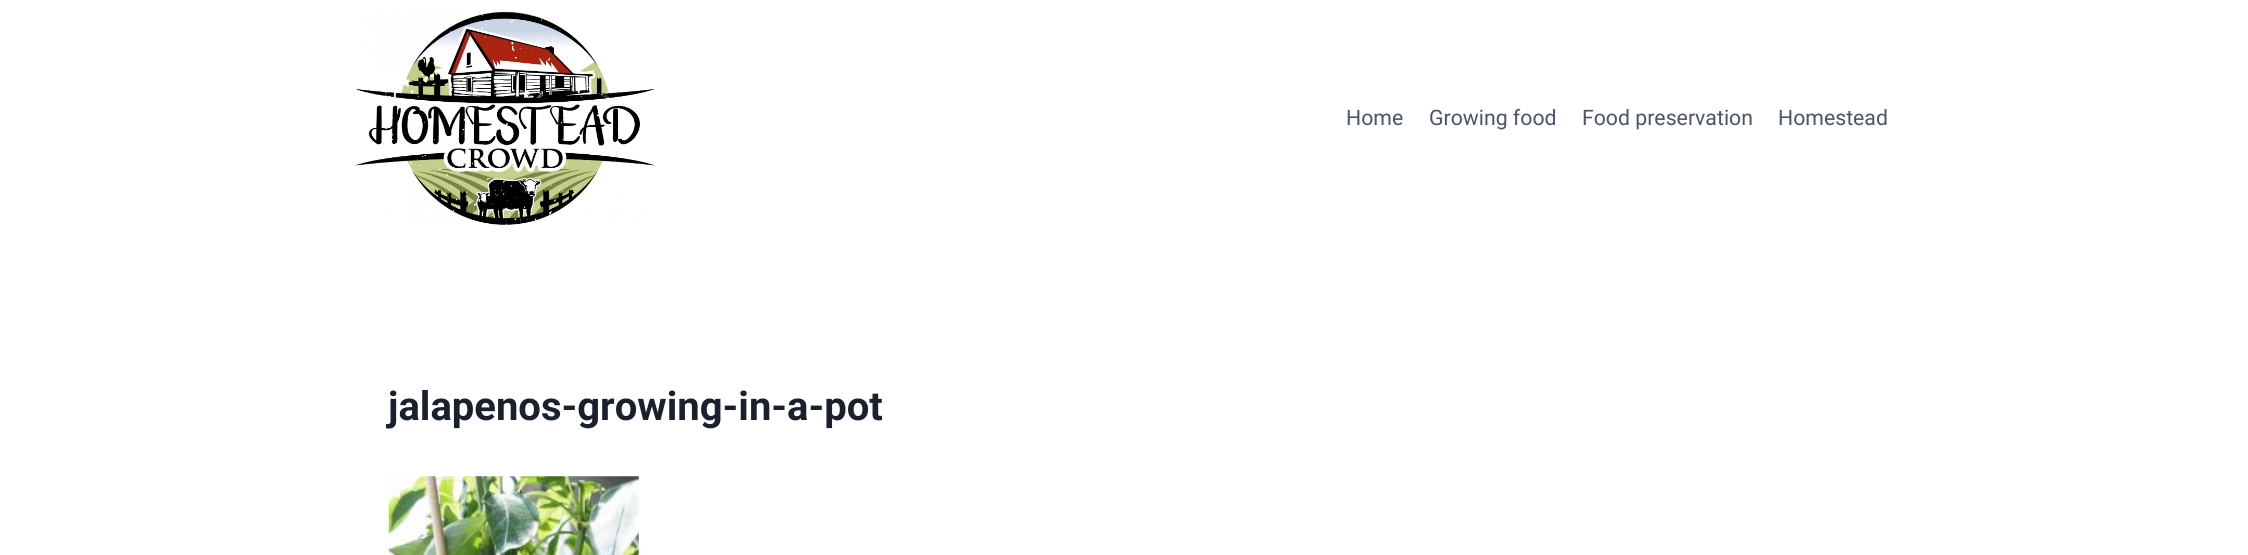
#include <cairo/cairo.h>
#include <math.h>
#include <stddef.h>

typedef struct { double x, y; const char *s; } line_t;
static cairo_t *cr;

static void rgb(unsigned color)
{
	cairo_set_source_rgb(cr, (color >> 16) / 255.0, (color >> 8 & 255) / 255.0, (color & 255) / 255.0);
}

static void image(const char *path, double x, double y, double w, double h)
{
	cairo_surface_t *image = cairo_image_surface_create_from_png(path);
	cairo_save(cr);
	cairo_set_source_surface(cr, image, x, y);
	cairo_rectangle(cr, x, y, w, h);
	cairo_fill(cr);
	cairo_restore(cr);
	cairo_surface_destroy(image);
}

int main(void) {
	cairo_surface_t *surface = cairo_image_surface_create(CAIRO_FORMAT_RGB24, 2248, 555);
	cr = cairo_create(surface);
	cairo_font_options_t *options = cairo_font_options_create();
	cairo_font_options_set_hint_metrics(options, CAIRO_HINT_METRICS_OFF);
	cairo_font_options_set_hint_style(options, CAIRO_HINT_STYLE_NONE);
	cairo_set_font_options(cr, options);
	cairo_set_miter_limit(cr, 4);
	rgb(0xffffff);
	cairo_paint(cr);
	image("img/1.png", 355, 11, 300, 214);
	image("img/2.png", 388, 476, 251, 79);
	cairo_select_font_face(cr, "Roboto", CAIRO_FONT_SLANT_NORMAL, CAIRO_FONT_WEIGHT_NORMAL);
	cairo_set_font_size(cr, 21.25);
	rgb(0x4a5568);
	{
		static const line_t items[] = {
			{1346, 125, "Home"},
			{1429, 125, "Growing food"},
			{1582, 125, "Food preservation"},
			{1778, 125, "Homestead"},
		};
		for (size_t i = 0; i < sizeof items / sizeof *items; i++) {
			cairo_move_to(cr, items[i].x, items[i].y);
			cairo_show_text(cr, items[i].s);
		}
	}
	cairo_select_font_face(cr, "Roboto", CAIRO_FONT_SLANT_NORMAL, CAIRO_FONT_WEIGHT_BOLD);
	cairo_set_font_size(cr, 40);
	rgb(0x1a202c);
	cairo_move_to(cr, 388, 420);
	cairo_show_text(cr, "jalapenos-growing-in-a-pot");
	cairo_surface_write_to_png(surface, "page.png");
	cairo_font_options_destroy(options);
	cairo_destroy(cr);
	cairo_surface_destroy(surface);
	return 0;
}
